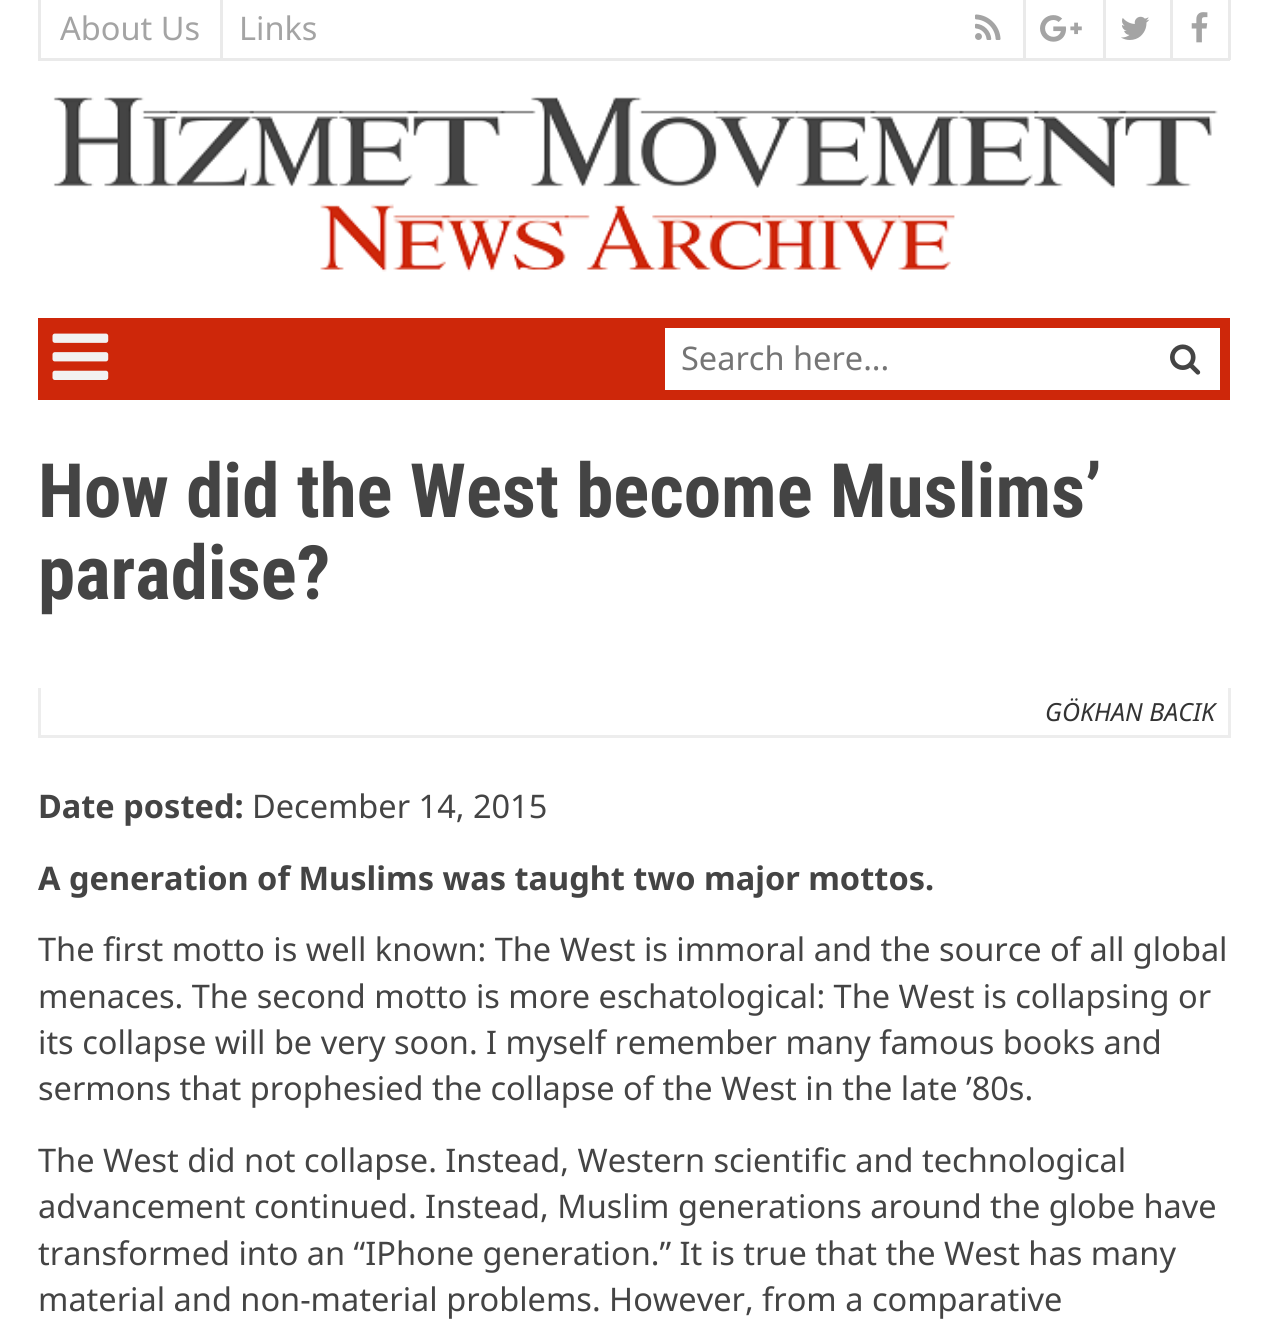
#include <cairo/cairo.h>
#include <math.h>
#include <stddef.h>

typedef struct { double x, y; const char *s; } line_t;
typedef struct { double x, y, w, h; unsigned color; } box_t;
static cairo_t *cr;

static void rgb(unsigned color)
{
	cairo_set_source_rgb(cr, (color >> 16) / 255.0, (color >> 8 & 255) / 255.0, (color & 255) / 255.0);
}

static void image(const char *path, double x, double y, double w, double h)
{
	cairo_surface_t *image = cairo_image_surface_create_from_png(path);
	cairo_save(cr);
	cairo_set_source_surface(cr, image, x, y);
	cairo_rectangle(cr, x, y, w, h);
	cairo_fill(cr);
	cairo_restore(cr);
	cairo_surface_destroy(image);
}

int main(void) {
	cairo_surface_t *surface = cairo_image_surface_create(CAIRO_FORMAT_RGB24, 1267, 1333);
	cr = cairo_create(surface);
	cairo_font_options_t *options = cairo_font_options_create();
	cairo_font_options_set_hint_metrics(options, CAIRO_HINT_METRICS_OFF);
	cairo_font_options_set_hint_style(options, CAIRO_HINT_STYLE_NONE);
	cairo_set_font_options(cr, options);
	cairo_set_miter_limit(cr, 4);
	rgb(0xffffff);
	cairo_paint(cr);
	{
		static const box_t items[] = {
			{1228, 0, 3, 60, 0xeaeaea},
			{38, 58, 1192, 3, 0xeaeaea},
			{38, 0, 3, 60, 0xeaeaea},
			{220, 0, 3, 58, 0xeaeaea},
			{1023, 0, 3, 58, 0xeaeaea},
		};
		for (size_t i = 0; i < sizeof items / sizeof *items; i++) {
			rgb(items[i].color);
			cairo_rectangle(cr, items[i].x, items[i].y, items[i].w, items[i].h);
			cairo_fill(cr);
		}
	}
	image("img/1.png", 975, 14, 26, 26);
	cairo_rectangle(cr, 1103, 0, 3, 58);
	cairo_fill(cr);
	image("img/2.png", 1040, 15, 42, 27);
	cairo_rectangle(cr, 1170, 0, 3, 58);
	cairo_fill(cr);
	image("img/3.png", 1121, 16, 29, 24);
	image("img/4.png", 1191, 12, 17, 31);
	image("img/5.png", 53, 97, 1165, 175);
	rgb(0xce270a);
	cairo_rectangle(cr, 38, 318, 1192, 82);
	cairo_fill(cr);
	image("img/6.png", 52, 333, 57, 47);
	rgb(0xffffff);
	cairo_rectangle(cr, 665, 328, 555, 62);
	cairo_fill(cr);
	image("img/7.png", 1170, 344, 31, 31);
	{
		static const box_t items[] = {
			{1228, 688, 3, 50, 0xededed},
			{38, 735, 1192, 3, 0xededed},
			{38, 688, 3, 50, 0xededed},
		};
		for (size_t i = 0; i < sizeof items / sizeof *items; i++) {
			rgb(items[i].color);
			cairo_rectangle(cr, items[i].x, items[i].y, items[i].w, items[i].h);
			cairo_fill(cr);
		}
	}
	cairo_select_font_face(cr, "Noto Sans", CAIRO_FONT_SLANT_NORMAL, CAIRO_FONT_WEIGHT_NORMAL);
	cairo_set_font_size(cr, 32.5);
	rgb(0xa4a4a4);
	cairo_move_to(cr, 60, 40);
	cairo_show_text(cr, "About Us");
	cairo_move_to(cr, 239, 40);
	cairo_show_text(cr, "Links");
	rgb(0x757575);
	cairo_move_to(cr, 681, 370);
	cairo_show_text(cr, "Search here...");
	cairo_select_font_face(cr, "Roboto Condensed", CAIRO_FONT_SLANT_NORMAL, CAIRO_FONT_WEIGHT_BOLD);
	cairo_set_font_size(cr, 75);
	rgb(0x444444);
	cairo_move_to(cr, 38, 517);
	cairo_show_text(cr, "How did the West become Muslims’");
	cairo_move_to(cr, 38, 599);
	cairo_show_text(cr, "paradise?");
	cairo_select_font_face(cr, "Noto Sans", CAIRO_FONT_SLANT_ITALIC, CAIRO_FONT_WEIGHT_NORMAL);
	cairo_set_font_size(cr, 25);
	rgb(0x333333);
	cairo_move_to(cr, 1045, 721);
	cairo_show_text(cr, "GÖKHAN BACIK");
	cairo_select_font_face(cr, "Noto Sans", CAIRO_FONT_SLANT_NORMAL, CAIRO_FONT_WEIGHT_BOLD);
	cairo_set_font_size(cr, 32.5);
	rgb(0x444444);
	cairo_move_to(cr, 38, 818);
	cairo_show_text(cr, "Date posted:");
	cairo_select_font_face(cr, "Noto Sans", CAIRO_FONT_SLANT_NORMAL, CAIRO_FONT_WEIGHT_NORMAL);
	cairo_move_to(cr, 252, 818);
	cairo_show_text(cr, "December 14, 2015");
	cairo_select_font_face(cr, "Noto Sans", CAIRO_FONT_SLANT_NORMAL, CAIRO_FONT_WEIGHT_BOLD);
	cairo_move_to(cr, 38, 890);
	cairo_show_text(cr, "A generation of Muslims was taught two major mottos.");
	cairo_select_font_face(cr, "Noto Sans", CAIRO_FONT_SLANT_NORMAL, CAIRO_FONT_WEIGHT_NORMAL);
	{
		static const line_t items[] = {
			{38, 961, "The first motto is well known: The West is immoral and the source of all global"},
			{38, 1008, "menaces. The second motto is more eschatological: The West is collapsing or"},
			{38, 1054, "its collapse will be very soon. I myself remember many famous books and"},
			{38, 1100, "sermons that prophesied the collapse of the West in the late ’80s."},
			{38, 1172, "The West did not collapse. Instead, Western scientific and technological"},
			{38, 1218, "advancement continued. Instead, Muslim generations around the globe have"},
			{38, 1265, "transformed into an “IPhone generation.” It is true that the West has many"},
			{38, 1311, "material and non-material problems. However, from a comparative"},
		};
		for (size_t i = 0; i < sizeof items / sizeof *items; i++) {
			cairo_move_to(cr, items[i].x, items[i].y);
			cairo_show_text(cr, items[i].s);
		}
	}
	cairo_surface_write_to_png(surface, "page.png");
	cairo_font_options_destroy(options);
	cairo_destroy(cr);
	cairo_surface_destroy(surface);
	return 0;
}
